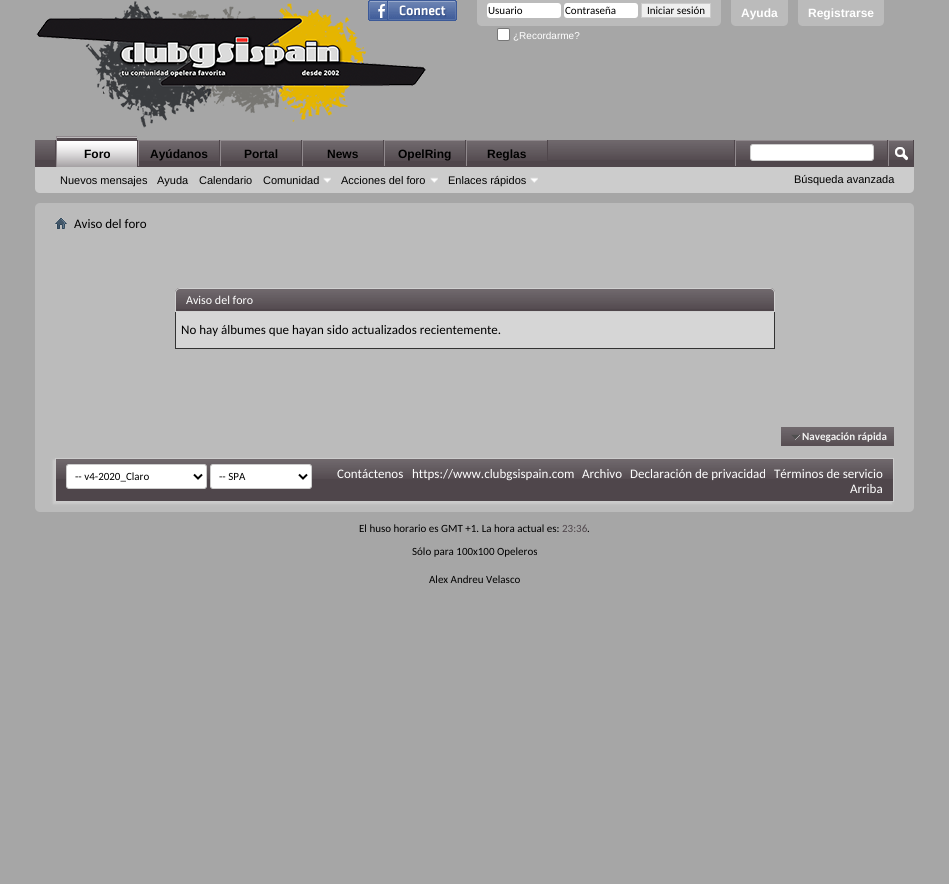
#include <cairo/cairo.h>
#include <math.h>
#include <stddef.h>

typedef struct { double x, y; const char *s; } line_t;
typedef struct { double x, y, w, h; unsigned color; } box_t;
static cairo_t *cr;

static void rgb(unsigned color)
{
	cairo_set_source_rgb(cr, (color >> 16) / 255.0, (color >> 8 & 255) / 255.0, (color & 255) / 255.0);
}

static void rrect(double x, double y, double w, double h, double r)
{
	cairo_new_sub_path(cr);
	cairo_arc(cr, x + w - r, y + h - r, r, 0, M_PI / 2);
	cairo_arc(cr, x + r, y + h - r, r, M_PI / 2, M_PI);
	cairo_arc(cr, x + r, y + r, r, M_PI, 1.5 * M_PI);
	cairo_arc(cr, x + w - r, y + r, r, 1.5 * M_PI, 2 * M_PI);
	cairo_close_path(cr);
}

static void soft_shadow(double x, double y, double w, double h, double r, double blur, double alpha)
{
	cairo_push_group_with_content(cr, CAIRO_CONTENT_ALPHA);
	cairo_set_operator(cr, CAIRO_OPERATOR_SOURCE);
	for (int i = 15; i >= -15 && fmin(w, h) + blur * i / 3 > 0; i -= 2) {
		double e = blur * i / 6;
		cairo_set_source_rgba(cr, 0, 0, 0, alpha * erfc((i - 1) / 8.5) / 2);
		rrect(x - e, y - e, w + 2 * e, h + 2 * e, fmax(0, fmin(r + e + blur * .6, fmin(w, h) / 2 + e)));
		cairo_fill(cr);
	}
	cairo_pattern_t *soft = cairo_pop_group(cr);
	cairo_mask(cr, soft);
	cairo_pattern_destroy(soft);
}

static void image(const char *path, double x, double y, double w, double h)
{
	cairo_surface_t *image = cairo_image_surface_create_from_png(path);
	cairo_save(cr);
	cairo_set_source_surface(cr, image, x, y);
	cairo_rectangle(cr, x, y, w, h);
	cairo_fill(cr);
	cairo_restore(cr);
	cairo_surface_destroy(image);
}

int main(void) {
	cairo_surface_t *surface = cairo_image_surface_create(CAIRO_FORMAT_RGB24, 949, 884);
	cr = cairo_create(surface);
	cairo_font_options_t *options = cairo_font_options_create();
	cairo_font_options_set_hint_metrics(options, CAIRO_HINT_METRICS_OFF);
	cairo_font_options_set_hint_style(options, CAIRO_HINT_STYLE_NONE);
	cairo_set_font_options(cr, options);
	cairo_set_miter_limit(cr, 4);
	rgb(0xa6a6a6);
	cairo_paint(cr);
	image("img/1.png", 36, 1, 390, 127);
	image("img/2.png", 368, 0, 89, 21);
	rgb(0xbbbbbb);
	cairo_new_path(cr);
	cairo_move_to(cr, 477, 0);
	cairo_line_to(cr, 721, 0);
	cairo_line_to(cr, 721, 21);
	cairo_curve_to(cr, 721, 24, 719, 26, 716, 26);
	cairo_line_to(cr, 482, 26);
	cairo_curve_to(cr, 479, 26, 477, 24, 477, 21);
	cairo_close_path(cr);
	cairo_fill(cr);
	rgb(0xffffff);
	rrect(487, 3, 74, 15, 3);
	cairo_fill(cr);
	rrect(564, 3, 74, 15, 3);
	cairo_fill(cr);
	rgb(0xefefef);
	cairo_rectangle(cr, 641.5, 3.5, 69, 14);
	cairo_fill_preserve(cr);
	rgb(0xcccccc);
	cairo_set_line_width(cr, 1);
	cairo_stroke(cr);
	rgb(0xffffff);
	rrect(497.5, 28.5, 12, 12, 1.5);
	cairo_fill_preserve(cr);
	rgb(0x767676);
	cairo_stroke(cr);
	rgb(0xbbbbbb);
	cairo_new_path(cr);
	cairo_move_to(cr, 731, 0);
	cairo_line_to(cr, 788, 0);
	cairo_line_to(cr, 788, 21);
	cairo_curve_to(cr, 788, 24, 786, 26, 783, 26);
	cairo_line_to(cr, 736, 26);
	cairo_curve_to(cr, 733, 26, 731, 24, 731, 21);
	cairo_close_path(cr);
	cairo_fill(cr);
	cairo_new_path(cr);
	cairo_move_to(cr, 798, 0);
	cairo_line_to(cr, 884, 0);
	cairo_line_to(cr, 884, 21);
	cairo_curve_to(cr, 884, 24, 882, 26, 879, 26);
	cairo_line_to(cr, 803, 26);
	cairo_curve_to(cr, 800, 26, 798, 24, 798, 21);
	cairo_close_path(cr);
	cairo_fill(cr);
	rgb(0xcccccc);
	cairo_new_path(cr);
	cairo_move_to(cr, 35, 140);
	cairo_line_to(cr, 914, 140);
	cairo_line_to(cr, 914, 188);
	cairo_curve_to(cr, 914, 191, 912, 193, 909, 193);
	cairo_line_to(cr, 40, 193);
	cairo_curve_to(cr, 37, 193, 35, 191, 35, 188);
	cairo_close_path(cr);
	cairo_fill(cr);
	rgb(0x4f464b);
	cairo_rectangle(cr, 35, 140, 879, 26);
	cairo_fill(cr);
	image("img/3.png", 35, 140, 878, 20);
	{
		static const box_t items[] = {
			{137, 140, 1, 26, 0x4f464b},
			{55, 140, 1, 26, 0x4f464b},
			{57, 137, 80, 23, 0x4f464b},
			{219, 140, 1, 27, 0x4f464b},
			{138, 140, 81, 1, 0x90898d},
			{138, 140, 1, 27, 0x90898d},
			{301, 140, 1, 27, 0x4f464b},
			{220, 140, 81, 1, 0x90898d},
			{220, 140, 1, 27, 0x90898d},
			{383, 140, 1, 27, 0x4f464b},
			{302, 140, 81, 1, 0x90898d},
			{302, 140, 1, 27, 0x90898d},
			{465, 140, 1, 27, 0x4f464b},
			{384, 140, 81, 1, 0x90898d},
			{384, 140, 1, 27, 0x90898d},
			{547, 140, 1, 27, 0x4f464b},
			{466, 140, 81, 1, 0x90898d},
			{466, 140, 1, 27, 0x90898d},
			{35, 166, 879, 1, 0x4f464b},
		};
		for (size_t i = 0; i < sizeof items / sizeof *items; i++) {
			rgb(items[i].color);
			cairo_rectangle(cr, items[i].x, items[i].y, items[i].w, items[i].h);
			cairo_fill(cr);
		}
	}
	image("img/4.png", 57, 137, 80, 30);
	{
		static const box_t items[] = {
			{56, 136, 81, 1, 0x90898d},
			{56, 136, 1, 31, 0x90898d},
			{139, 141, 80, 19, 0x4f464b},
		};
		for (size_t i = 0; i < sizeof items / sizeof *items; i++) {
			rgb(items[i].color);
			cairo_rectangle(cr, items[i].x, items[i].y, items[i].w, items[i].h);
			cairo_fill(cr);
		}
	}
	image("img/5.png", 139, 141, 80, 20);
	cairo_rectangle(cr, 221, 141, 80, 19);
	cairo_fill(cr);
	image("img/5.png", 221, 141, 80, 20);
	cairo_rectangle(cr, 303, 141, 80, 19);
	cairo_fill(cr);
	image("img/5.png", 303, 141, 80, 20);
	cairo_rectangle(cr, 385, 141, 80, 19);
	cairo_fill(cr);
	image("img/5.png", 385, 141, 80, 20);
	cairo_rectangle(cr, 467, 141, 80, 19);
	cairo_fill(cr);
	image("img/5.png", 467, 141, 80, 20);
	image("img/6.png", 323, 177, 8, 6);
	image("img/6.png", 430, 177, 8, 6);
	image("img/6.png", 530, 177, 8, 6);
	{
		static const box_t items[] = {
			{734, 140, 1, 26, 0x4f464b},
			{735, 140, 152, 1, 0x90898d},
			{735, 140, 1, 26, 0x90898d},
		};
		for (size_t i = 0; i < sizeof items / sizeof *items; i++) {
			rgb(items[i].color);
			cairo_rectangle(cr, items[i].x, items[i].y, items[i].w, items[i].h);
			cairo_fill(cr);
		}
	}
	rgb(0xffffff);
	rrect(750.5, 144.5, 123, 16, 2.5);
	cairo_fill_preserve(cr);
	rgb(0xcccccc);
	cairo_stroke(cr);
	{
		static const box_t items[] = {
			{887, 140, 1, 26, 0x4f464b},
			{888, 140, 25, 1, 0x90898d},
			{888, 140, 1, 26, 0x90898d},
		};
		for (size_t i = 0; i < sizeof items / sizeof *items; i++) {
			rgb(items[i].color);
			cairo_rectangle(cr, items[i].x, items[i].y, items[i].w, items[i].h);
			cairo_fill(cr);
		}
	}
	image("img/7.png", 895, 147, 13, 14);
	rgb(0xbbbbbb);
	rrect(35, 203, 879, 309, 5);
	cairo_fill(cr);
	image("img/8.png", 55, 218, 12, 11);
	rgb(0x4f464b);
	cairo_new_path(cr);
	cairo_move_to(cr, 180, 288);
	cairo_line_to(cr, 770, 288);
	cairo_curve_to(cr, 773, 288, 775, 290, 775, 293);
	cairo_line_to(cr, 775, 312);
	cairo_line_to(cr, 175, 312);
	cairo_line_to(cr, 175, 293);
	cairo_curve_to(cr, 175, 290, 177, 288, 180, 288);
	cairo_close_path(cr);
	cairo_fill(cr);
	image("img/9.png", 175, 289, 600, 20);
	cairo_new_path(cr);
	cairo_move_to(cr, 180, 288.5);
	cairo_line_to(cr, 770, 288.5);
	cairo_curve_to(cr, 772.5, 288.5, 774.5, 290.5, 774.5, 293);
	cairo_line_to(cr, 774.5, 311.5);
	cairo_line_to(cr, 175.5, 311.5);
	cairo_line_to(cr, 175.5, 293);
	cairo_curve_to(cr, 175.5, 290.5, 177.5, 288.5, 180, 288.5);
	cairo_close_path(cr);
	rgb(0xd0d0d0);
	cairo_stroke(cr);
	{
		static const box_t items[] = {
			{176, 312, 598, 36, 0xd6d6d6},
			{774, 312, 1, 37, 0x333333},
			{175, 348, 600, 1, 0x333333},
			{175, 312, 1, 37, 0x333333},
			{781, 427, 113, 19, 0x4f464b},
		};
		for (size_t i = 0; i < sizeof items / sizeof *items; i++) {
			rgb(items[i].color);
			cairo_rectangle(cr, items[i].x, items[i].y, items[i].w, items[i].h);
			cairo_fill(cr);
		}
	}
	image("img/10.png", 781, 427, 113, 19);
	image("img/11.png", 791, 434, 9, 6);
	rgb(0xcccccc);
	soft_shadow(53, 460, 839, 44, 0, 1, 1);
	rgb(0x4f464b);
	cairo_rectangle(cr, 56, 459, 837, 42);
	cairo_fill(cr);
	image("img/12.png", 56, 459, 837, 20);
	cairo_rectangle(cr, 55.5, 458.5, 838, 43);
	rgb(0xcccccc);
	cairo_stroke(cr);
	rgb(0xffffff);
	rrect(66.5, 464.5, 140, 24, 2.5);
	cairo_fill_preserve(cr);
	rgb(0xcccccc);
	cairo_stroke(cr);
	cairo_new_path(cr);
	cairo_move_to(cr, 194, 474.5);
	cairo_line_to(cr, 198, 478.5);
	cairo_line_to(cr, 202, 474.5);
	rgb(0x000000);
	cairo_set_line_width(cr, 2);
	cairo_stroke(cr);
	rgb(0xffffff);
	rrect(210.5, 464.5, 101, 24, 2.5);
	cairo_fill_preserve(cr);
	rgb(0xcccccc);
	cairo_set_line_width(cr, 1);
	cairo_stroke(cr);
	cairo_new_path(cr);
	cairo_move_to(cr, 299, 474.5);
	cairo_line_to(cr, 303, 478.5);
	cairo_line_to(cr, 307, 474.5);
	rgb(0x000000);
	cairo_set_line_width(cr, 2);
	cairo_stroke(cr);
	cairo_select_font_face(cr, "Carlito", CAIRO_FONT_SLANT_NORMAL, CAIRO_FONT_WEIGHT_NORMAL);
	cairo_set_font_size(cr, 11);
	{
		static const line_t items[] = {
			{488, 14, "Usuario"},
			{565, 14, "Contraseña"},
			{647, 14, "Iniciar sesión"},
		};
		for (size_t i = 0; i < sizeof items / sizeof *items; i++) {
			cairo_move_to(cr, items[i].x, items[i].y);
			cairo_show_text(cr, items[i].s);
		}
	}
	cairo_select_font_face(cr, "Liberation Sans", CAIRO_FONT_SLANT_NORMAL, CAIRO_FONT_WEIGHT_NORMAL);
	cairo_set_font_size(cr, 10);
	rgb(0xffffff);
	cairo_move_to(cr, 513, 39);
	cairo_show_text(cr, "¿Recordarme?");
	cairo_select_font_face(cr, "Liberation Sans", CAIRO_FONT_SLANT_NORMAL, CAIRO_FONT_WEIGHT_BOLD);
	cairo_set_font_size(cr, 12);
	cairo_move_to(cr, 741, 17);
	cairo_show_text(cr, "Ayuda");
	cairo_move_to(cr, 808, 17);
	cairo_show_text(cr, "Registrarse");
	rgb(0x000000);
	{
		static const line_t items[] = {
			{84, 158, "Foro"},
			{150, 158, "Ayúdanos"},
			{244, 158, "Portal"},
			{327, 158, "News"},
			{398, 158, "OpelRing"},
			{487, 158, "Reglas"},
		};
		for (size_t i = 0; i < sizeof items / sizeof *items; i++) {
			cairo_move_to(cr, items[i].x, items[i].y);
			cairo_show_text(cr, items[i].s);
		}
	}
	cairo_select_font_face(cr, "Liberation Sans", CAIRO_FONT_SLANT_NORMAL, CAIRO_FONT_WEIGHT_NORMAL);
	cairo_set_font_size(cr, 11);
	{
		static const line_t items[] = {
			{60, 184, "Nuevos mensajes"},
			{157, 184, "Ayuda"},
			{199, 184, "Calendario"},
			{263, 184, "Comunidad"},
			{341, 184, "Acciones del foro"},
			{448, 184, "Enlaces rápidos"},
			{794, 183, "Búsqueda avanzada"},
		};
		for (size_t i = 0; i < sizeof items / sizeof *items; i++) {
			cairo_move_to(cr, items[i].x, items[i].y);
			cairo_show_text(cr, items[i].s);
		}
	}
	cairo_select_font_face(cr, "Carlito", CAIRO_FONT_SLANT_NORMAL, CAIRO_FONT_WEIGHT_NORMAL);
	cairo_set_font_size(cr, 13);
	cairo_move_to(cr, 74, 228);
	cairo_show_text(cr, "Aviso del foro");
	cairo_set_font_size(cr, 12);
	rgb(0xffffff);
	cairo_move_to(cr, 186, 304);
	cairo_show_text(cr, "Aviso del foro");
	cairo_set_font_size(cr, 13);
	rgb(0x000000);
	cairo_move_to(cr, 181, 334);
	cairo_show_text(cr, "No hay álbumes que hayan sido actualizados recientemente.");
	cairo_select_font_face(cr, "Carlito", CAIRO_FONT_SLANT_NORMAL, CAIRO_FONT_WEIGHT_BOLD);
	cairo_set_font_size(cr, 11);
	rgb(0xf3f3f3);
	cairo_move_to(cr, 802, 440);
	cairo_show_text(cr, "Navegación rápida");
	cairo_select_font_face(cr, "Carlito", CAIRO_FONT_SLANT_NORMAL, CAIRO_FONT_WEIGHT_NORMAL);
	rgb(0x000000);
	cairo_move_to(cr, 75, 480);
	cairo_show_text(cr, "-- v4-2020_Claro");
	cairo_move_to(cr, 219, 480);
	cairo_show_text(cr, "-- SPA");
	cairo_set_font_size(cr, 13);
	rgb(0xffffff);
	{
		static const line_t items[] = {
			{337, 478, "Contáctenos"},
			{412, 478, "https://www.clubgsispain.com"},
			{582, 478, "Archivo"},
			{630, 478, "Declaración de privacidad"},
			{774, 478, "Términos de servicio"},
			{850, 493, "Arriba"},
		};
		for (size_t i = 0; i < sizeof items / sizeof *items; i++) {
			cairo_move_to(cr, items[i].x, items[i].y);
			cairo_show_text(cr, items[i].s);
		}
	}
	cairo_set_font_size(cr, 11);
	rgb(0x000000);
	cairo_move_to(cr, 359, 532);
	cairo_show_text(cr, "El huso horario es GMT +1. La hora actual es:");
	rgb(0x4f464b);
	cairo_move_to(cr, 562, 532);
	cairo_show_text(cr, "23:36");
	rgb(0x000000);
	{
		static const line_t items[] = {
			{587, 532, "."},
			{412, 555, "Sólo para 100x100 Opeleros"},
			{429, 583, "Alex Andreu Velasco"},
		};
		for (size_t i = 0; i < sizeof items / sizeof *items; i++) {
			cairo_move_to(cr, items[i].x, items[i].y);
			cairo_show_text(cr, items[i].s);
		}
	}
	cairo_surface_write_to_png(surface, "page.png");
	cairo_font_options_destroy(options);
	cairo_destroy(cr);
	cairo_surface_destroy(surface);
	return 0;
}
